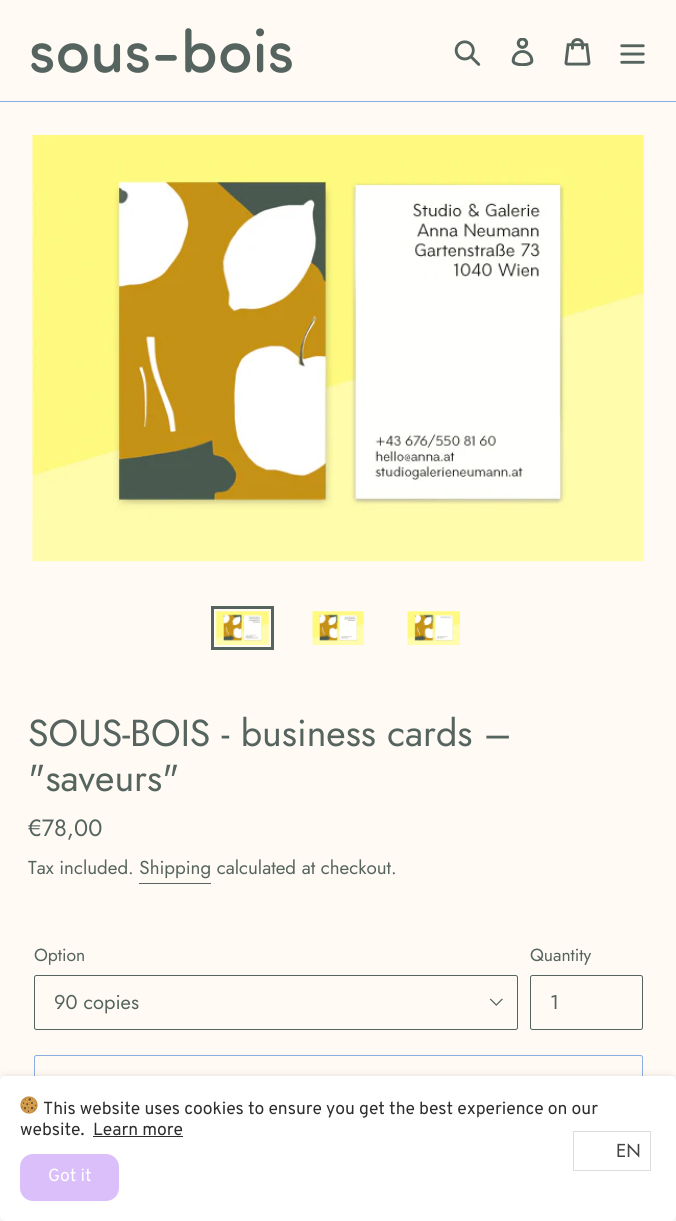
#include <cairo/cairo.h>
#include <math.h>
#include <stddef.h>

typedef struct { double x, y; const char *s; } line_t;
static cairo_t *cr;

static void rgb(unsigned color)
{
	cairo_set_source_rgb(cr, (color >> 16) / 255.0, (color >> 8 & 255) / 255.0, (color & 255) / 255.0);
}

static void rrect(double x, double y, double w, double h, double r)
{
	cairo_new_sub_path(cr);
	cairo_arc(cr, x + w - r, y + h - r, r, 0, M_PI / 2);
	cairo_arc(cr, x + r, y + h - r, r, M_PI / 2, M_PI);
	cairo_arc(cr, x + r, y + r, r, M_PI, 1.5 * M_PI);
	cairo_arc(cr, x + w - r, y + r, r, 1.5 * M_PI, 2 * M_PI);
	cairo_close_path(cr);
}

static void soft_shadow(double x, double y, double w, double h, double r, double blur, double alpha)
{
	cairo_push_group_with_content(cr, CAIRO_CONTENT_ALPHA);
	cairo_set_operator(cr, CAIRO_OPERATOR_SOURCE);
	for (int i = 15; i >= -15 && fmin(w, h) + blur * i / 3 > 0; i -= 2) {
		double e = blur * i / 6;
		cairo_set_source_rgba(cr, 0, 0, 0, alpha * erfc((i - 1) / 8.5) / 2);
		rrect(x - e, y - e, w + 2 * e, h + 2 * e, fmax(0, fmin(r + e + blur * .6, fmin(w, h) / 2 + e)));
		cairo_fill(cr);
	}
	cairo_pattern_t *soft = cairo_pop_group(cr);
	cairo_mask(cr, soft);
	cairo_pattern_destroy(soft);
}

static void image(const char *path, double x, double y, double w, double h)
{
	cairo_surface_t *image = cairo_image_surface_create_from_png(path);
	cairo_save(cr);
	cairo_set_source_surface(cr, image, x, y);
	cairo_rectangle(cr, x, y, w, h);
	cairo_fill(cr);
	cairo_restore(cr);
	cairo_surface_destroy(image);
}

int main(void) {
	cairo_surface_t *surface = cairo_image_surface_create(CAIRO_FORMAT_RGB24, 676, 1221);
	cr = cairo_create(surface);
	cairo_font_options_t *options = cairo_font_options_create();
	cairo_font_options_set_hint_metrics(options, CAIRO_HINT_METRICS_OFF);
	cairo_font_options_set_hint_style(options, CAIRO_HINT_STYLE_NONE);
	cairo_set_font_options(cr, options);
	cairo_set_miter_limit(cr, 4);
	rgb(0xfffaf4);
	cairo_paint(cr);
	rgb(0x88aee2);
	cairo_rectangle(cr, 0, 101, 676, 1);
	cairo_fill(cr);
	image("img/1.png", 31, 28, 261, 45);
	image("img/2.png", 454, 40, 27, 26);
	image("img/3.png", 511, 38, 23, 28);
	image("img/4.png", 564, 38, 27, 28);
	image("img/5.png", 620, 44, 25, 20);
	image("img/6.png", 32, 135, 612, 427);
	cairo_rectangle(cr, 212.5, 607.5, 60, 41);
	rgb(0x55645f);
	cairo_set_line_width(cr, 3);
	cairo_stroke(cr);
	image("img/7.png", 216, 611, 53, 34);
	image("img/8.png", 312, 611, 52, 34);
	image("img/9.png", 407, 611, 53, 34);
	cairo_rectangle(cr, 139, 883, 72, 1);
	cairo_fill(cr);
	image("img/10.png", 489, 998, 14, 8);
	rrect(34.5, 975.5, 483, 54, 2);
	cairo_set_line_width(cr, 1);
	cairo_stroke(cr);
	rrect(530.5, 975.5, 112, 54, 2);
	cairo_stroke(cr);
	rrect(34.5, 1055.5, 608, 54, 2);
	rgb(0x88aee2);
	cairo_stroke(cr);
	rgb(0xffffff);
	cairo_rectangle(cr, 0, 1076, 676, 145);
	cairo_fill(cr);
	cairo_save(cr);
	cairo_set_fill_rule(cr, CAIRO_FILL_RULE_EVEN_ODD);
	cairo_new_path(cr);
	cairo_move_to(cr, 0, 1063);
	cairo_line_to(cr, 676, 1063);
	cairo_line_to(cr, 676, 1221);
	cairo_line_to(cr, 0, 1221);
	cairo_close_path(cr);
	cairo_move_to(cr, 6, 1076);
	cairo_line_to(cr, 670, 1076);
	cairo_curve_to(cr, 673.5, 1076, 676, 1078.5, 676, 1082);
	cairo_line_to(cr, 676, 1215);
	cairo_curve_to(cr, 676, 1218.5, 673.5, 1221, 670, 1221);
	cairo_line_to(cr, 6, 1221);
	cairo_curve_to(cr, 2.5, 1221, 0, 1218.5, 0, 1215);
	cairo_line_to(cr, 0, 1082);
	cairo_curve_to(cr, 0, 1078.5, 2.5, 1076, 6, 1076);
	cairo_close_path(cr);
	cairo_clip(cr);
	rgb(0x000000);
	soft_shadow(0, 1076, 676, 145, 6, 4, 0.12);
	cairo_restore(cr);
	image("img/11.png", 20, 1096, 18, 18);
	rgb(0x2d2d2d);
	cairo_rectangle(cr, 93, 1136, 90, 1);
	cairo_fill(cr);
	rgb(0xdabffb);
	rrect(20, 1154, 99, 47, 13);
	cairo_fill(cr);
	cairo_rectangle(cr, 573.5, 1131.5, 77, 39);
	rgb(0xdcdcdc);
	cairo_stroke(cr);
	cairo_select_font_face(cr, "Jost", CAIRO_FONT_SLANT_NORMAL, CAIRO_FONT_WEIGHT_NORMAL);
	cairo_set_font_size(cr, 37.5);
	rgb(0x55645f);
	cairo_move_to(cr, 28, 746);
	cairo_show_text(cr, "SOUS-BOIS - business cards –");
	cairo_move_to(cr, 28, 791);
	cairo_show_text(cr, "\"saveurs\"");
	cairo_set_font_size(cr, 23.5);
	cairo_move_to(cr, 28, 836);
	cairo_show_text(cr, "€78,00");
	cairo_set_font_size(cr, 18.75);
	cairo_move_to(cr, 28, 874);
	cairo_show_text(cr, "Tax included. Shipping calculated at checkout.");
	cairo_set_font_size(cr, 17.5);
	cairo_move_to(cr, 34, 961);
	cairo_show_text(cr, "Option");
	cairo_set_font_size(cr, 20);
	cairo_move_to(cr, 54, 1009);
	cairo_show_text(cr, "90 copies");
	cairo_set_font_size(cr, 17.5);
	cairo_move_to(cr, 530, 961);
	cairo_show_text(cr, "Quantity");
	cairo_set_font_size(cr, 20);
	cairo_move_to(cr, 550, 1009);
	cairo_show_text(cr, "1");
	cairo_select_font_face(cr, "Overpass", CAIRO_FONT_SLANT_NORMAL, CAIRO_FONT_WEIGHT_NORMAL);
	cairo_set_font_size(cr, 17.5);
	rgb(0x2d2d2d);
	{
		static const line_t items[] = {
			{43, 1114, "This website uses cookies to ensure you get the best experience on our"},
			{20, 1135, "website."},
			{93, 1135, "Learn more"},
		};
		for (size_t i = 0; i < sizeof items / sizeof *items; i++) {
			cairo_move_to(cr, items[i].x, items[i].y);
			cairo_show_text(cr, items[i].s);
		}
	}
	rgb(0xffffff);
	cairo_move_to(cr, 48, 1181);
	cairo_show_text(cr, "Got it");
	cairo_select_font_face(cr, "Jost", CAIRO_FONT_SLANT_NORMAL, CAIRO_FONT_WEIGHT_NORMAL);
	cairo_set_font_size(cr, 18.75);
	rgb(0x444444);
	cairo_move_to(cr, 616, 1157);
	cairo_show_text(cr, "EN");
	cairo_surface_write_to_png(surface, "page.png");
	cairo_font_options_destroy(options);
	cairo_destroy(cr);
	cairo_surface_destroy(surface);
	return 0;
}
